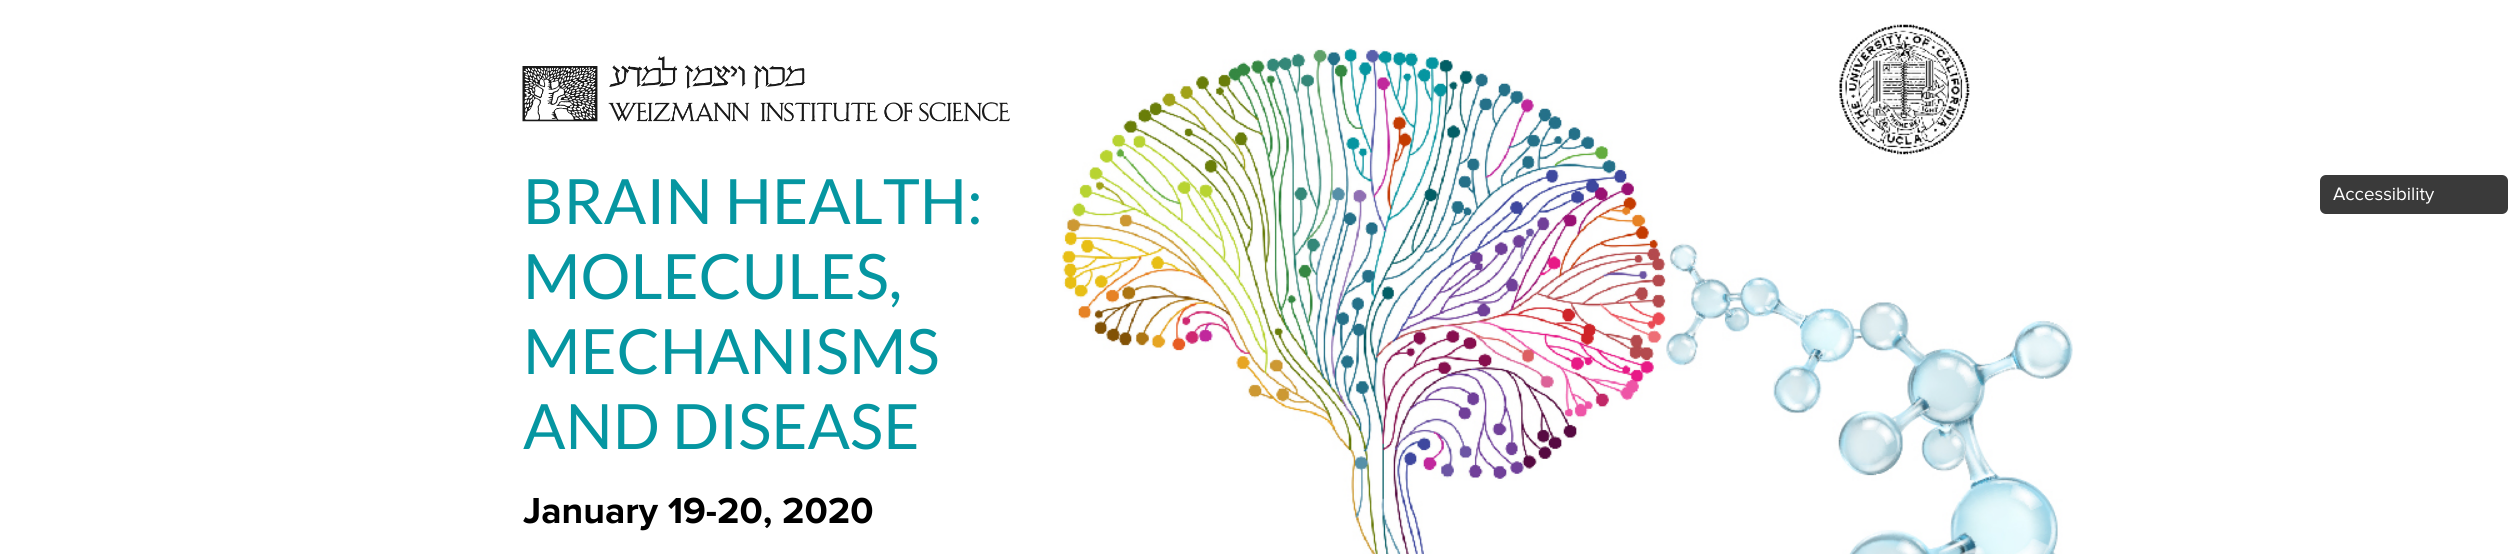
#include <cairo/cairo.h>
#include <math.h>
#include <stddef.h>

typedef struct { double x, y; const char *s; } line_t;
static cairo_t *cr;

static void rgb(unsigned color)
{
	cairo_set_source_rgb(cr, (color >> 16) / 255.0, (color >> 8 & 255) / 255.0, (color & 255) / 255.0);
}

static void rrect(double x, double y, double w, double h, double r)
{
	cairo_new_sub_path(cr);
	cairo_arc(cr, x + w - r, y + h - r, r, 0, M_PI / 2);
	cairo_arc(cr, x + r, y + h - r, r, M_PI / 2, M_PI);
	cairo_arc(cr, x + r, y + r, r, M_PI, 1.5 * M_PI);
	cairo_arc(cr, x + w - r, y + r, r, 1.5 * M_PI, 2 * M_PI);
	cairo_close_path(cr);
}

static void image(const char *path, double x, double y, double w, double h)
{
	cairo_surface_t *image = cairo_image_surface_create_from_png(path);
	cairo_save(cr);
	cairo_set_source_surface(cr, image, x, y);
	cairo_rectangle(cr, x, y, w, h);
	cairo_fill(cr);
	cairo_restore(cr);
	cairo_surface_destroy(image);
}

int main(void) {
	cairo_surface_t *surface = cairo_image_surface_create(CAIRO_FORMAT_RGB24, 2520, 554);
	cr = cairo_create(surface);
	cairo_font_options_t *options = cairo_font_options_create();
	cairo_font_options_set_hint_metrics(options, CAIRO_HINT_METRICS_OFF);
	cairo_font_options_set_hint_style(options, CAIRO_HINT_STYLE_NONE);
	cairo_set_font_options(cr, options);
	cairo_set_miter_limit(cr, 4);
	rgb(0xffffff);
	cairo_paint(cr);
	image("img/1.png", 1062, 48, 1011, 506);
	image("img/2.png", 522, 56, 488, 66);
	image("img/3.png", 1839, 24, 131, 131);
	rgb(0x3a3a3a);
	rrect(2320, 175, 188, 39, 6);
	cairo_fill(cr);
	cairo_select_font_face(cr, "Lato", CAIRO_FONT_SLANT_NORMAL, CAIRO_FONT_WEIGHT_NORMAL);
	cairo_set_font_size(cr, 62.5);
	rgb(0x0596a1);
	{
		static const line_t items[] = {
			{523, 224, "BRAIN HEALTH:"},
			{523, 299, "MOLECULES,"},
			{523, 374, "MECHANISMS"},
			{523, 449, "AND DISEASE"},
		};
		for (size_t i = 0; i < sizeof items / sizeof *items; i++) {
			cairo_move_to(cr, items[i].x, items[i].y);
			cairo_show_text(cr, items[i].s);
		}
	}
	cairo_select_font_face(cr, "Proxima Nova", CAIRO_FONT_SLANT_NORMAL, CAIRO_FONT_WEIGHT_BOLD);
	cairo_set_font_size(cr, 37.5);
	rgb(0x000000);
	cairo_move_to(cr, 523, 523);
	cairo_show_text(cr, "January 19-20, 2020");
	cairo_select_font_face(cr, "Proxima Nova", CAIRO_FONT_SLANT_NORMAL, CAIRO_FONT_WEIGHT_NORMAL);
	cairo_set_font_size(cr, 18.75);
	rgb(0xffffff);
	cairo_move_to(cr, 2333, 200);
	cairo_show_text(cr, "Accessibility");
	cairo_surface_write_to_png(surface, "page.png");
	cairo_font_options_destroy(options);
	cairo_destroy(cr);
	cairo_surface_destroy(surface);
	return 0;
}
